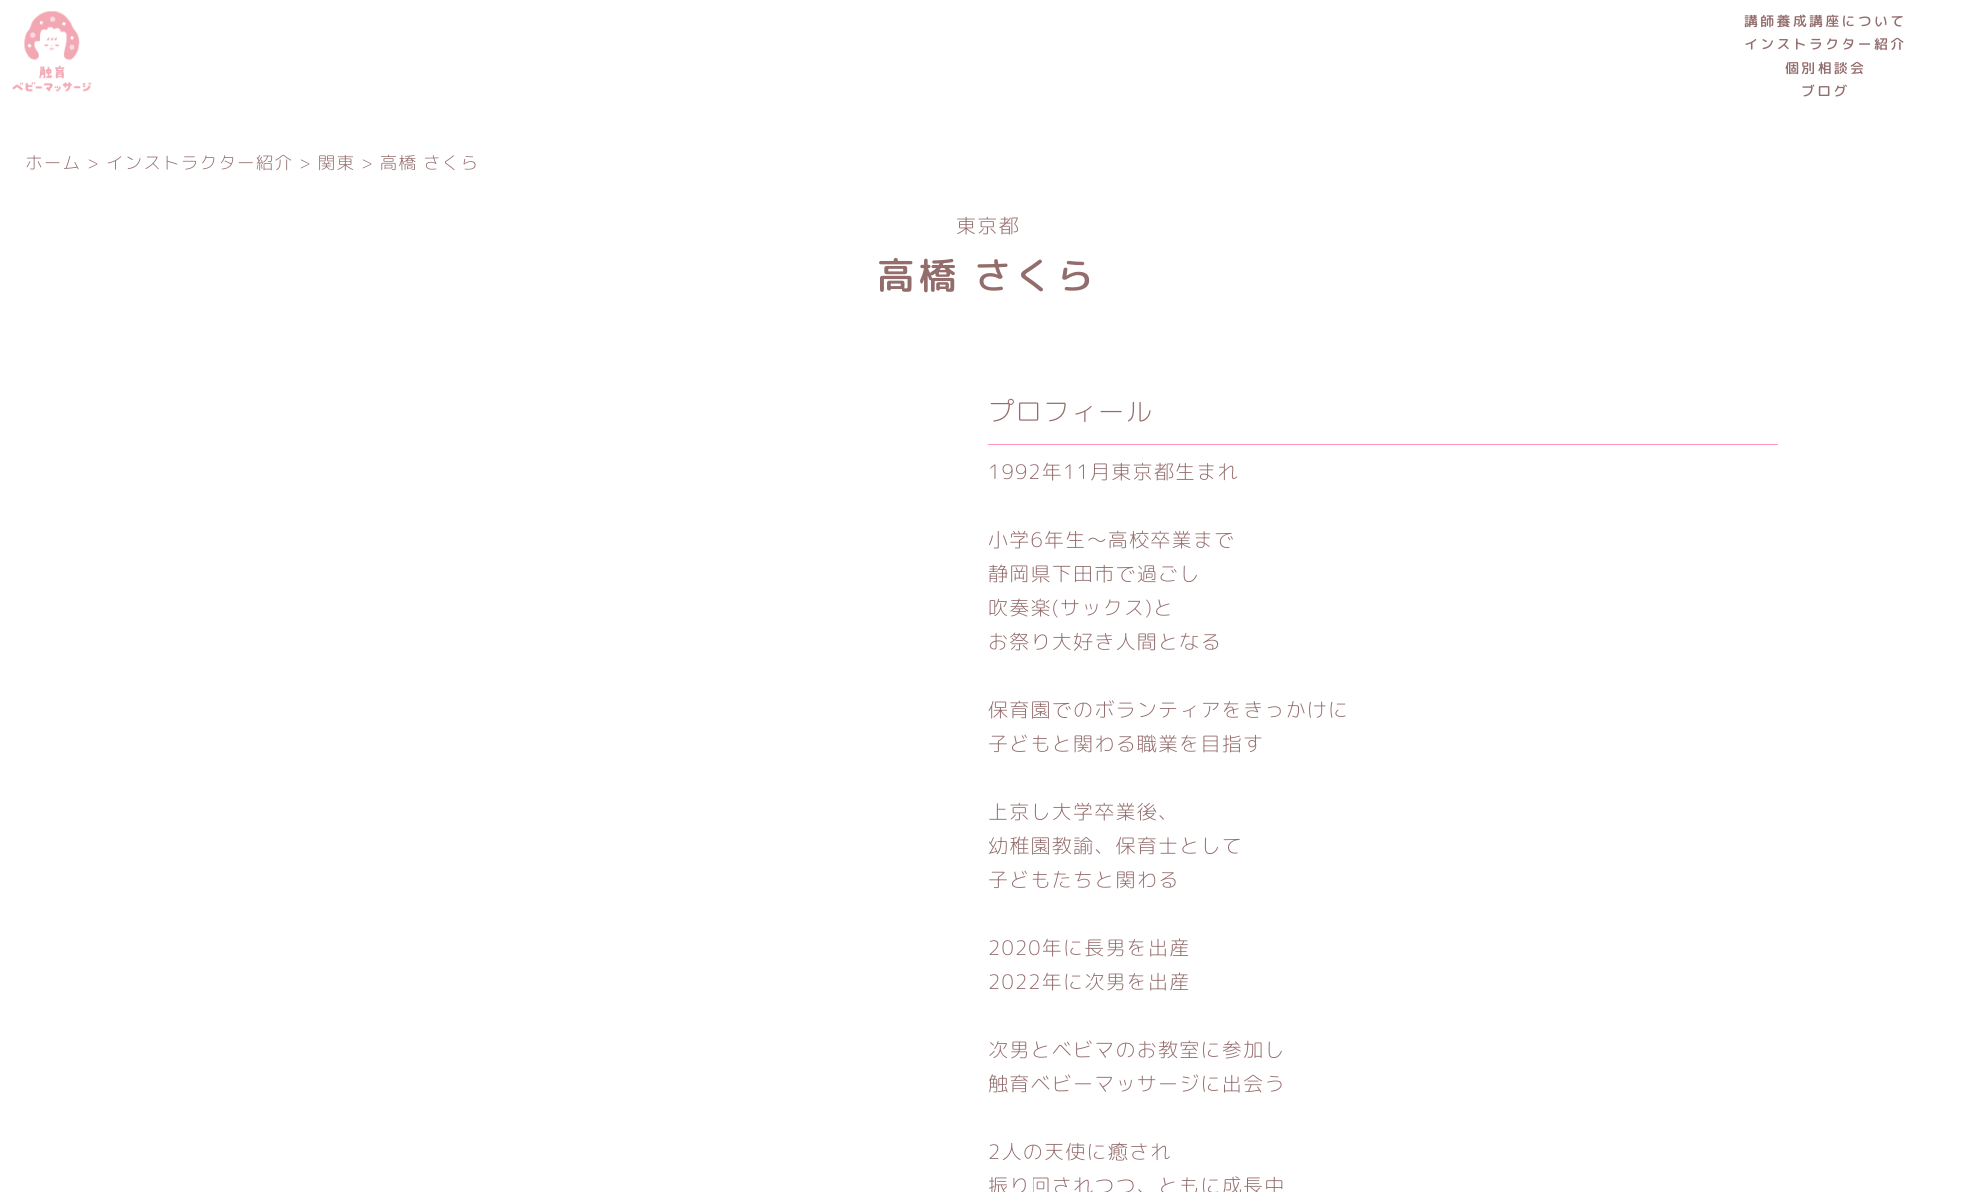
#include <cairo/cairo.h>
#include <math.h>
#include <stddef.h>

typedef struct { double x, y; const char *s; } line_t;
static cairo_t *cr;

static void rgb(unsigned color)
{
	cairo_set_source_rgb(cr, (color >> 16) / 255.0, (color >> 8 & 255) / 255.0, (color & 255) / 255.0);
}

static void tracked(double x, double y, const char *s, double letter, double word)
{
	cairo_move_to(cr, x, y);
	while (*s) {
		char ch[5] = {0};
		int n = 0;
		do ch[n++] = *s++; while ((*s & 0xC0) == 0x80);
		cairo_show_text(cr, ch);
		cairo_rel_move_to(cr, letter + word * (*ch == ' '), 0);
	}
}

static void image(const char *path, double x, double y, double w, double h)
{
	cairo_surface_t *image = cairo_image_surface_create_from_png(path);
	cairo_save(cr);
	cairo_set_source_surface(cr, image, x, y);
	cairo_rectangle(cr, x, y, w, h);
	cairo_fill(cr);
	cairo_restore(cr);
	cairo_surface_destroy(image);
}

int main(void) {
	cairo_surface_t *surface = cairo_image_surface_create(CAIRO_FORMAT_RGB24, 1974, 1192);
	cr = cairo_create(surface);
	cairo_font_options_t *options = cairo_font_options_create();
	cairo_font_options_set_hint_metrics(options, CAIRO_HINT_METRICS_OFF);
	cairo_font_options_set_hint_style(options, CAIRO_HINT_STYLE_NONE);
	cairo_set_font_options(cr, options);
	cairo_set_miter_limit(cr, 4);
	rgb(0xffffff);
	cairo_paint(cr);
	image("img/1.png", 12, 11, 80, 81);
	rgb(0xff98b4);
	cairo_rectangle(cr, 988, 444, 790, 1);
	cairo_fill(cr);
	cairo_select_font_face(cr, "Rounded Mplus 1c Medium", CAIRO_FONT_SLANT_NORMAL, CAIRO_FONT_WEIGHT_NORMAL);
	cairo_set_font_size(cr, 13.75);
	rgb(0x936c6c);
	{
		static const line_t items[] = {
			{1744, 26, "講師養成講座について"},
			{1744, 49, "インストラクター紹介"},
			{1785, 73, "個別相談会"},
			{1801, 96, "ブログ"},
		};
		for (size_t i = 0; i < sizeof items / sizeof *items; i++) {
			tracked(items[i].x, items[i].y, items[i].s, 2.5, 0);
		}
	}
	cairo_select_font_face(cr, "Rounded Mplus 1c Light", CAIRO_FONT_SLANT_NORMAL, CAIRO_FONT_WEIGHT_NORMAL);
	cairo_set_font_size(cr, 17.5);
	tracked(25, 169, "ホーム > インストラクター紹介 > 関東 > 高橋 さくら", 1.25, 0);
	cairo_set_font_size(cr, 20);
	tracked(956, 233, "東京都", 1.25, 0);
	cairo_select_font_face(cr, "Rounded Mplus 1c Medium", CAIRO_FONT_SLANT_NORMAL, CAIRO_FONT_WEIGHT_NORMAL);
	cairo_set_font_size(cr, 37.5);
	tracked(877, 289, "高橋 さくら", 3.75, 0);
	cairo_select_font_face(cr, "Rounded Mplus 1c Light", CAIRO_FONT_SLANT_NORMAL, CAIRO_FONT_WEIGHT_NORMAL);
	cairo_set_font_size(cr, 26.25);
	tracked(988, 421, "プロフィール", 1.25, 0);
	cairo_set_font_size(cr, 20);
	{
		static const line_t items[] = {
			{988, 479, "1992年11月東京都生まれ"},
			{988, 547, "小学6年生〜高校卒業まで"},
			{988, 581, "静岡県下田市で過ごし"},
			{988, 615, "吹奏楽(サックス)と"},
			{988, 649, "お祭り大好き人間となる"},
			{988, 717, "保育園でのボランティアをきっかけに"},
			{988, 751, "子どもと関わる職業を目指す"},
			{988, 819, "上京し大学卒業後、"},
			{988, 853, "幼稚園教諭、保育士として"},
			{988, 887, "子どもたちと関わる"},
			{988, 955, "2020年に長男を出産"},
			{988, 989, "2022年に次男を出産"},
			{988, 1057, "次男とベビマのお教室に参加し"},
			{988, 1091, "触育ベビーマッサージに出会う"},
			{988, 1159, "2人の天使に癒され"},
			{988, 1193, "振り回されつつ、ともに成長中"},
		};
		for (size_t i = 0; i < sizeof items / sizeof *items; i++) {
			tracked(items[i].x, items[i].y, items[i].s, 1.25, 0);
		}
	}
	cairo_surface_write_to_png(surface, "page.png");
	cairo_font_options_destroy(options);
	cairo_destroy(cr);
	cairo_surface_destroy(surface);
	return 0;
}
